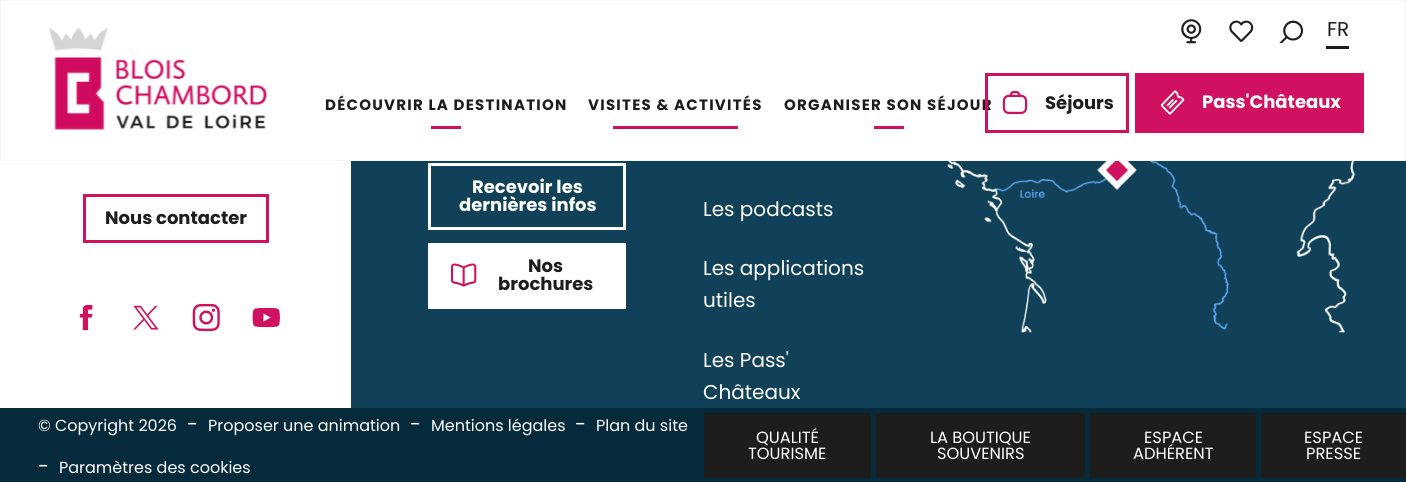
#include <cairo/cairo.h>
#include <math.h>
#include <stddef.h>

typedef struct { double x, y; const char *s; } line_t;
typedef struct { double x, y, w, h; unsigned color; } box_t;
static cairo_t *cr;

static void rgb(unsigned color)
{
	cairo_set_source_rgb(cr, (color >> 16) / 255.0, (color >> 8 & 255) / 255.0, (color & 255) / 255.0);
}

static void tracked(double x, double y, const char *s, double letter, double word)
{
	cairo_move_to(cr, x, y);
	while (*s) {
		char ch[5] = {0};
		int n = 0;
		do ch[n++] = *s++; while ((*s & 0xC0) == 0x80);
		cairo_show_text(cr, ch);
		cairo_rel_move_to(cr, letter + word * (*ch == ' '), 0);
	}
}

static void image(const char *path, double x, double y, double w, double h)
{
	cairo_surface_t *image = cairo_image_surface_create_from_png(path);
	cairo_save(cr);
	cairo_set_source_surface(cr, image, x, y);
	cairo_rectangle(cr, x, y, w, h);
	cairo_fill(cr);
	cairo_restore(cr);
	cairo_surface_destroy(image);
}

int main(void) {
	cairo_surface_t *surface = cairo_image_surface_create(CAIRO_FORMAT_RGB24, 1406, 482);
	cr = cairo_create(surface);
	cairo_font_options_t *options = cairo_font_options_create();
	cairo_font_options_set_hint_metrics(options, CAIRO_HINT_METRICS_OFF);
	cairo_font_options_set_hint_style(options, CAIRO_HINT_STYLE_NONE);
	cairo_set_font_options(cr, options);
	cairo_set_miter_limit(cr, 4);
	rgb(0xffffff);
	cairo_paint(cr);
	cairo_rectangle(cr, 0.5, 0.5, 1405, 160);
	rgb(0xf5f5f5);
	cairo_set_line_width(cr, 1);
	cairo_stroke(cr);
	image("img/1.png", 49, 27, 218, 103);
	{
		static const box_t items[] = {
			{431, 126, 30, 3, 0xcf115f},
			{613, 126, 125, 3, 0xcf115f},
			{874, 126, 30, 3, 0xcf115f},
		};
		for (size_t i = 0; i < sizeof items / sizeof *items; i++) {
			rgb(items[i].color);
			cairo_rectangle(cr, items[i].x, items[i].y, items[i].w, items[i].h);
			cairo_fill(cr);
		}
	}
	image("img/2.png", 1181, 19, 21, 25);
	image("img/3.png", 1229, 20, 25, 22);
	image("img/4.png", 1279, 20, 25, 23);
	rgb(0x1d1d1b);
	cairo_rectangle(cr, 1326, 46, 23, 3);
	cairo_fill(cr);
	rgb(0xcf115f);
	cairo_rectangle(cr, 1135, 73, 229, 60);
	cairo_fill(cr);
	image("img/6.png", 1160, 90, 25, 25);
	cairo_rectangle(cr, 84.5, 195.5, 183, 46);
	cairo_set_line_width(cr, 3);
	cairo_stroke(cr);
	image("img/7.png", 79, 304, 14, 27);
	image("img/8.png", 133, 305, 26, 25);
	image("img/9.png", 192, 303, 28, 29);
	image("img/10.png", 252, 307, 28, 21);
	rgb(0x114158);
	cairo_rectangle(cr, 351, 161, 1055, 247);
	cairo_fill(cr);
	cairo_rectangle(cr, 429.5, 164.5, 195, 64);
	rgb(0xffffff);
	cairo_stroke(cr);
	cairo_rectangle(cr, 428, 243, 198, 66);
	cairo_fill(cr);
	image("img/11.png", 450, 263, 27, 24);
	image("img/12.png", 947, 161, 409, 172);
	{
		static const box_t items[] = {
			{0, 408, 1406, 74, 0x042a3c},
			{704, 413, 167, 65, 0x1d1d1b},
			{876, 413, 209, 65, 0x1d1d1b},
			{1090, 413, 166, 65, 0x1d1d1b},
			{1261, 413, 145, 65, 0x1d1d1b},
		};
		for (size_t i = 0; i < sizeof items / sizeof *items; i++) {
			rgb(items[i].color);
			cairo_rectangle(cr, items[i].x, items[i].y, items[i].w, items[i].h);
			cairo_fill(cr);
		}
	}
	cairo_select_font_face(cr, "Poppins", CAIRO_FONT_SLANT_NORMAL, CAIRO_FONT_WEIGHT_BOLD);
	cairo_set_font_size(cr, 15);
	{
		static const line_t items[] = {
			{325, 110, "DÉCOUVRIR LA DESTINATION"},
			{588, 110, "VISITES & ACTIVITÉS"},
			{784, 110, "ORGANISER SON SÉJOUR"},
		};
		for (size_t i = 0; i < sizeof items / sizeof *items; i++) {
			tracked(items[i].x, items[i].y, items[i].s, 1.25, 0);
		}
	}
	cairo_select_font_face(cr, "Poppins", CAIRO_FONT_SLANT_NORMAL, CAIRO_FONT_WEIGHT_NORMAL);
	cairo_set_font_size(cr, 20);
	cairo_move_to(cr, 1327, 36);
	cairo_show_text(cr, "FR");
	cairo_rectangle(cr, 986.5, 74.5, 141, 57);
	rgb(0xcf115f);
	cairo_stroke(cr);
	image("img/5.png", 1002, 90, 26, 25);
	cairo_select_font_face(cr, "Poppins", CAIRO_FONT_SLANT_NORMAL, CAIRO_FONT_WEIGHT_BOLD);
	cairo_set_font_size(cr, 18);
	rgb(0x1d1d1b);
	cairo_move_to(cr, 1045, 109);
	cairo_show_text(cr, "Séjours");
	rgb(0xffffff);
	cairo_move_to(cr, 1202, 108);
	cairo_show_text(cr, "Pass'Châteaux");
	rgb(0x1d1d1b);
	cairo_move_to(cr, 105, 224);
	cairo_show_text(cr, "Nous contacter");
	rgb(0xffffff);
	cairo_move_to(cr, 472, 193);
	cairo_show_text(cr, "Recevoir les");
	cairo_move_to(cr, 459, 211);
	cairo_show_text(cr, "dernières infos");
	rgb(0x1d1d1b);
	cairo_move_to(cr, 528, 272);
	cairo_show_text(cr, "Nos");
	cairo_move_to(cr, 498, 290);
	cairo_show_text(cr, "brochures");
	cairo_select_font_face(cr, "Poppins", CAIRO_FONT_SLANT_NORMAL, CAIRO_FONT_WEIGHT_NORMAL);
	cairo_set_font_size(cr, 20);
	rgb(0xffffff);
	{
		static const line_t items[] = {
			{703, 216, "Les podcasts"},
			{703, 275, "Les applications"},
			{703, 307, "utiles"},
			{703, 367, "Les Pass'"},
			{703, 399, "Châteaux"},
		};
		for (size_t i = 0; i < sizeof items / sizeof *items; i++) {
			cairo_move_to(cr, items[i].x, items[i].y);
			cairo_show_text(cr, items[i].s);
		}
	}
	cairo_set_font_size(cr, 16);
	cairo_move_to(cr, 38, 431);
	cairo_show_text(cr, "© Copyright 2026");
	cairo_set_font_size(cr, 20);
	cairo_move_to(cr, 187, 431);
	cairo_show_text(cr, "-");
	cairo_set_font_size(cr, 16);
	cairo_move_to(cr, 208, 431);
	cairo_show_text(cr, "Proposer une animation");
	cairo_set_font_size(cr, 20);
	cairo_move_to(cr, 410, 431);
	cairo_show_text(cr, "-");
	cairo_set_font_size(cr, 16);
	cairo_move_to(cr, 431, 431);
	cairo_show_text(cr, "Mentions légales");
	cairo_set_font_size(cr, 20);
	cairo_move_to(cr, 575, 431);
	cairo_show_text(cr, "-");
	cairo_set_font_size(cr, 16);
	cairo_move_to(cr, 596, 431);
	cairo_show_text(cr, "Plan du site");
	cairo_set_font_size(cr, 20);
	cairo_move_to(cr, 38, 473);
	cairo_show_text(cr, "-");
	cairo_set_font_size(cr, 16);
	cairo_move_to(cr, 59, 473);
	cairo_show_text(cr, "Paramètres des cookies");
	cairo_set_font_size(cr, 16.25);
	{
		static const line_t items[] = {
			{756, 443, "QUALITÉ"},
			{748, 459, "TOURISME"},
			{930, 443, "LA BOUTIQUE"},
			{937, 459, "SOUVENIRS"},
			{1144, 443, "ESPACE"},
			{1133, 459, "ADHÉRENT"},
			{1304, 443, "ESPACE"},
			{1306, 459, "PRESSE"},
		};
		for (size_t i = 0; i < sizeof items / sizeof *items; i++) {
			cairo_move_to(cr, items[i].x, items[i].y);
			cairo_show_text(cr, items[i].s);
		}
	}
	cairo_surface_write_to_png(surface, "page.png");
	cairo_font_options_destroy(options);
	cairo_destroy(cr);
	cairo_surface_destroy(surface);
	return 0;
}
